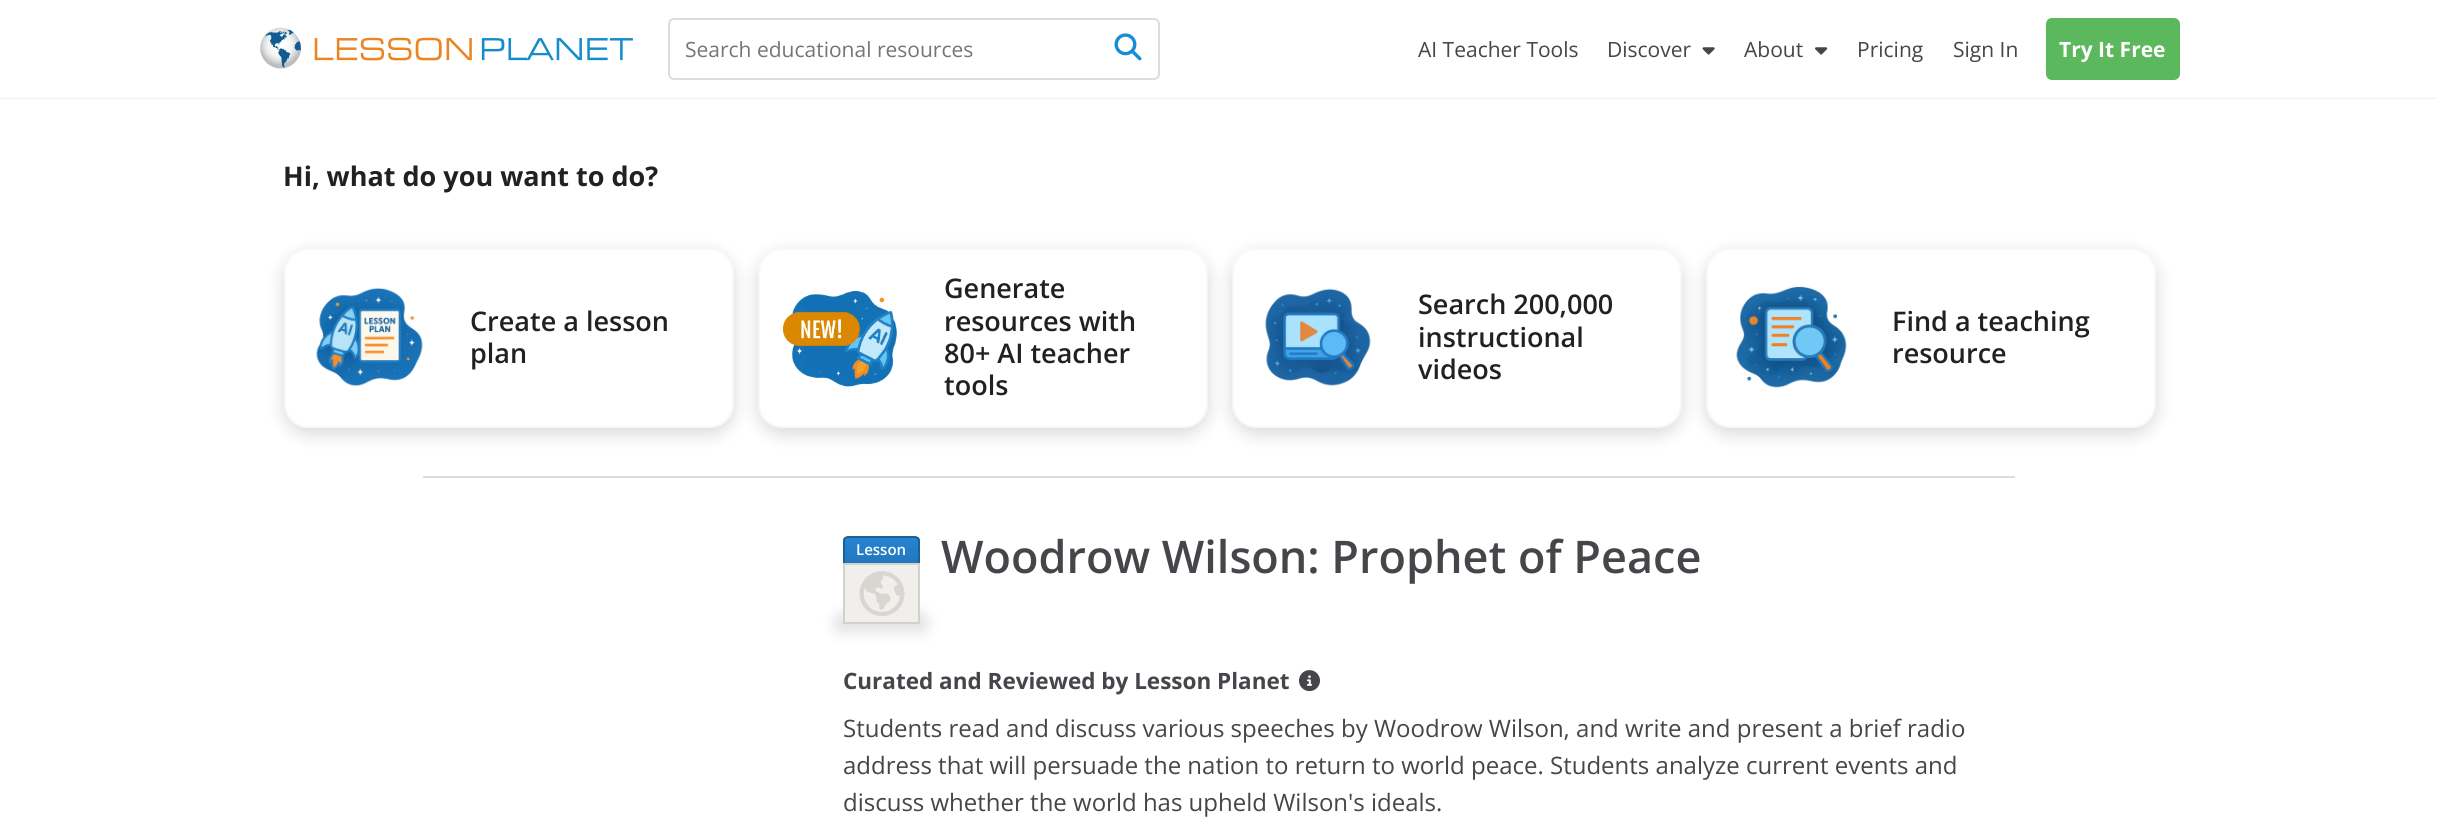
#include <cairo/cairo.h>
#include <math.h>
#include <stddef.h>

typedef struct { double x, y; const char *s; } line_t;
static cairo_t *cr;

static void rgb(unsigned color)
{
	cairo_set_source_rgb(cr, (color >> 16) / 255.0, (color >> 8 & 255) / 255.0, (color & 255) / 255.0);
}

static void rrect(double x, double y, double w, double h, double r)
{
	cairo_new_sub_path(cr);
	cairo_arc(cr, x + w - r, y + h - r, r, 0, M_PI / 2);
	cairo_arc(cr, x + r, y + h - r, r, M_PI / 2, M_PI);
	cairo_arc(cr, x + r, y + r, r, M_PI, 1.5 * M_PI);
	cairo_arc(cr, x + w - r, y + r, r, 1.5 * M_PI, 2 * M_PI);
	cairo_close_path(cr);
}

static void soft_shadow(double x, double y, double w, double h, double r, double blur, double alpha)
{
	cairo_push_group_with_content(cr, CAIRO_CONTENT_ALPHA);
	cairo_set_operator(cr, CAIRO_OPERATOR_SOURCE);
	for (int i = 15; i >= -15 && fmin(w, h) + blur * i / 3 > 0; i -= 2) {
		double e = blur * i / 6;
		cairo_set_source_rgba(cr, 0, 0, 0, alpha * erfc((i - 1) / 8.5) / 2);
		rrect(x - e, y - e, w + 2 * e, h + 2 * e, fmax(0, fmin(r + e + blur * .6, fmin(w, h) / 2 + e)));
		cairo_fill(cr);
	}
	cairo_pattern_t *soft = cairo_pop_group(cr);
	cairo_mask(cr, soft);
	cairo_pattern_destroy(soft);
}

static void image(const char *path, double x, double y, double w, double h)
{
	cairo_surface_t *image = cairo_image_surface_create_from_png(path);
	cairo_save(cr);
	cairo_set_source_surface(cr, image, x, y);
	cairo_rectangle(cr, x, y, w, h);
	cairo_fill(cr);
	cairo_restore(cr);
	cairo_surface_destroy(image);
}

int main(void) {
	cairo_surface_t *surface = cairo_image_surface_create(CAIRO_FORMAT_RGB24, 2437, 818);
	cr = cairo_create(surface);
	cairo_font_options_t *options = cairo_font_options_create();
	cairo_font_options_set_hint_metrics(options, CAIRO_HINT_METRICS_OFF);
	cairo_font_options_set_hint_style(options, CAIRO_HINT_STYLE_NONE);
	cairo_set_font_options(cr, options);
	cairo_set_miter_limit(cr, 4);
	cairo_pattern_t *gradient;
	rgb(0xffffff);
	cairo_paint(cr);
	rgb(0xf1f1f4);
	cairo_new_path(cr);
	cairo_move_to(cr, 0, 98);
	cairo_line_to(cr, 0, 99);
	cairo_line_to(cr, 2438, 99);
	cairo_line_to(cr, 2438, 2);
	cairo_line_to(cr, 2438, 98);
	cairo_close_path(cr);
	cairo_fill(cr);
	image("img/1.png", 260, 27, 373, 42);
	rrect(669, 19, 490, 60, 5);
	rgb(0xdcdce3);
	cairo_stroke(cr);
	image("img/2.png", 1114, 33, 28, 28);
	image("img/3.png", 1702, 47, 13, 8);
	image("img/4.png", 1815, 47, 13, 8);
	rgb(0x5cb85c);
	rrect(2046, 18, 134, 62, 6);
	cairo_fill(cr);
	rgb(0x000000);
	soft_shadow(284, 254, 450, 180, 24, 9, 0.15);
	rgb(0xffffff);
	rrect(285, 249, 448, 178, 23);
	cairo_fill_preserve(cr);
	rgb(0xf7f8f9);
	cairo_stroke(cr);
	image("img/5.png", 316, 287, 107, 100);
	rgb(0x000000);
	soft_shadow(758, 254, 450, 180, 24, 9, 0.15);
	rgb(0xffffff);
	rrect(759, 249, 448, 178, 23);
	cairo_fill_preserve(cr);
	rgb(0xf7f8f9);
	cairo_stroke(cr);
	image("img/6.png", 783, 290, 114, 97);
	rgb(0x000000);
	soft_shadow(1232, 254, 450, 180, 24, 9, 0.15);
	rgb(0xffffff);
	rrect(1233, 249, 448, 178, 23);
	cairo_fill_preserve(cr);
	rgb(0xf7f8f9);
	cairo_stroke(cr);
	image("img/7.png", 1265, 288, 106, 98);
	rgb(0x000000);
	soft_shadow(1706, 254, 450, 180, 24, 9, 0.15);
	rgb(0xffffff);
	rrect(1707, 249, 448, 178, 23);
	cairo_fill_preserve(cr);
	rgb(0xf7f8f9);
	cairo_stroke(cr);
	image("img/8.png", 1736, 286, 111, 102);
	rgb(0xdddddd);
	cairo_rectangle(cr, 423, 476, 1592, 2);
	cairo_fill(cr);
	cairo_save(cr);
	cairo_new_path(cr);
	cairo_move_to(cr, 848, 536);
	cairo_line_to(cr, 915, 536);
	cairo_curve_to(cr, 918, 536, 920, 538, 920, 541);
	cairo_line_to(cr, 920, 587);
	cairo_line_to(cr, 843, 587);
	cairo_line_to(cr, 843, 541);
	cairo_curve_to(cr, 843, 538, 845, 536, 848, 536);
	cairo_close_path(cr);
	cairo_clip(cr);
	gradient = cairo_pattern_create_linear(881, 537, 881, 585);
	cairo_pattern_add_color_stop_rgba(gradient, 0, 0.145, 0.518, 0.82, 1);
	cairo_pattern_add_color_stop_rgba(gradient, 1, 0.122, 0.431, 0.682, 1);
	cairo_set_source(cr, gradient);
	cairo_pattern_destroy(gradient);
	cairo_rectangle(cr, 843, 537, 77, 26);
	cairo_fill(cr);
	cairo_restore(cr);
	cairo_new_path(cr);
	cairo_move_to(cr, 848, 537);
	cairo_line_to(cr, 915, 537);
	cairo_curve_to(cr, 917, 537, 919, 539, 919, 541);
	cairo_line_to(cr, 919, 586);
	cairo_line_to(cr, 844, 586);
	cairo_line_to(cr, 844, 541);
	cairo_curve_to(cr, 844, 539, 846, 537, 848, 537);
	cairo_close_path(cr);
	rgb(0x1b6098);
	cairo_stroke(cr);
	rgb(0x000000);
	soft_shadow(836, 614, 91, 18, 9, 7.5, 0.12);
	rgb(0xf0efec);
	cairo_rectangle(cr, 844, 564, 75, 59);
	cairo_fill_preserve(cr);
	rgb(0xd3d1cc);
	cairo_stroke(cr);
	image("img/9.png", 859, 571, 46, 45);
	image("img/10.png", 1299, 670, 21, 22);
	cairo_select_font_face(cr, "Open Sans", CAIRO_FONT_SLANT_NORMAL, CAIRO_FONT_WEIGHT_NORMAL);
	cairo_set_font_size(cr, 21);
	rgb(0x757575);
	cairo_move_to(cr, 685, 57);
	cairo_show_text(cr, "Search educational resources");
	rgb(0x45454a);
	{
		static const line_t items[] = {
			{1418, 57, "AI Teacher Tools"},
			{1607, 57, "Discover"},
			{1744, 57, "About"},
			{1857, 57, "Pricing"},
			{1953, 57, "Sign In"},
		};
		for (size_t i = 0; i < sizeof items / sizeof *items; i++) {
			cairo_move_to(cr, items[i].x, items[i].y);
			cairo_show_text(cr, items[i].s);
		}
	}
	cairo_select_font_face(cr, "Open Sans", CAIRO_FONT_SLANT_NORMAL, CAIRO_FONT_WEIGHT_BOLD);
	rgb(0xffffff);
	cairo_move_to(cr, 2059, 57);
	cairo_show_text(cr, "Try It Free");
	cairo_set_font_size(cr, 27);
	rgb(0x212121);
	cairo_move_to(cr, 283, 186);
	cairo_show_text(cr, "Hi, what do you want to do?");
	cairo_select_font_face(cr, "Open Sans SemiBold", CAIRO_FONT_SLANT_NORMAL, CAIRO_FONT_WEIGHT_NORMAL);
	{
		static const line_t items[] = {
			{470, 331, "Create a lesson"},
			{470, 363, "plan"},
			{944, 298, "Generate"},
			{944, 331, "resources with"},
			{944, 363, "80+ AI teacher"},
			{944, 395, "tools"},
			{1418, 314, "Search 200,000"},
			{1418, 347, "instructional"},
			{1418, 379, "videos"},
			{1892, 331, "Find a teaching"},
			{1892, 363, "resource"},
		};
		for (size_t i = 0; i < sizeof items / sizeof *items; i++) {
			cairo_move_to(cr, items[i].x, items[i].y);
			cairo_show_text(cr, items[i].s);
		}
	}
	cairo_set_font_size(cr, 15);
	rgb(0xffffff);
	cairo_move_to(cr, 856, 555);
	cairo_show_text(cr, "Lesson");
	cairo_set_font_size(cr, 45);
	rgb(0x45454a);
	cairo_move_to(cr, 941, 573);
	cairo_show_text(cr, "Woodrow Wilson: Prophet of Peace");
	cairo_select_font_face(cr, "Open Sans", CAIRO_FONT_SLANT_NORMAL, CAIRO_FONT_WEIGHT_BOLD);
	cairo_set_font_size(cr, 22.5);
	cairo_move_to(cr, 843, 689);
	cairo_show_text(cr, "Curated and Reviewed by Lesson Planet");
	cairo_select_font_face(cr, "Open Sans", CAIRO_FONT_SLANT_NORMAL, CAIRO_FONT_WEIGHT_NORMAL);
	cairo_set_font_size(cr, 24);
	{
		static const line_t items[] = {
			{843, 737, "Students read and discuss various speeches by Woodrow Wilson, and write and present a brief radio"},
			{843, 774, "address that will persuade the nation to return to world peace. Students analyze current events and"},
			{843, 811, "discuss whether the world has upheld Wilson's ideals."},
		};
		for (size_t i = 0; i < sizeof items / sizeof *items; i++) {
			cairo_move_to(cr, items[i].x, items[i].y);
			cairo_show_text(cr, items[i].s);
		}
	}
	cairo_surface_write_to_png(surface, "page.png");
	cairo_font_options_destroy(options);
	cairo_destroy(cr);
	cairo_surface_destroy(surface);
	return 0;
}
